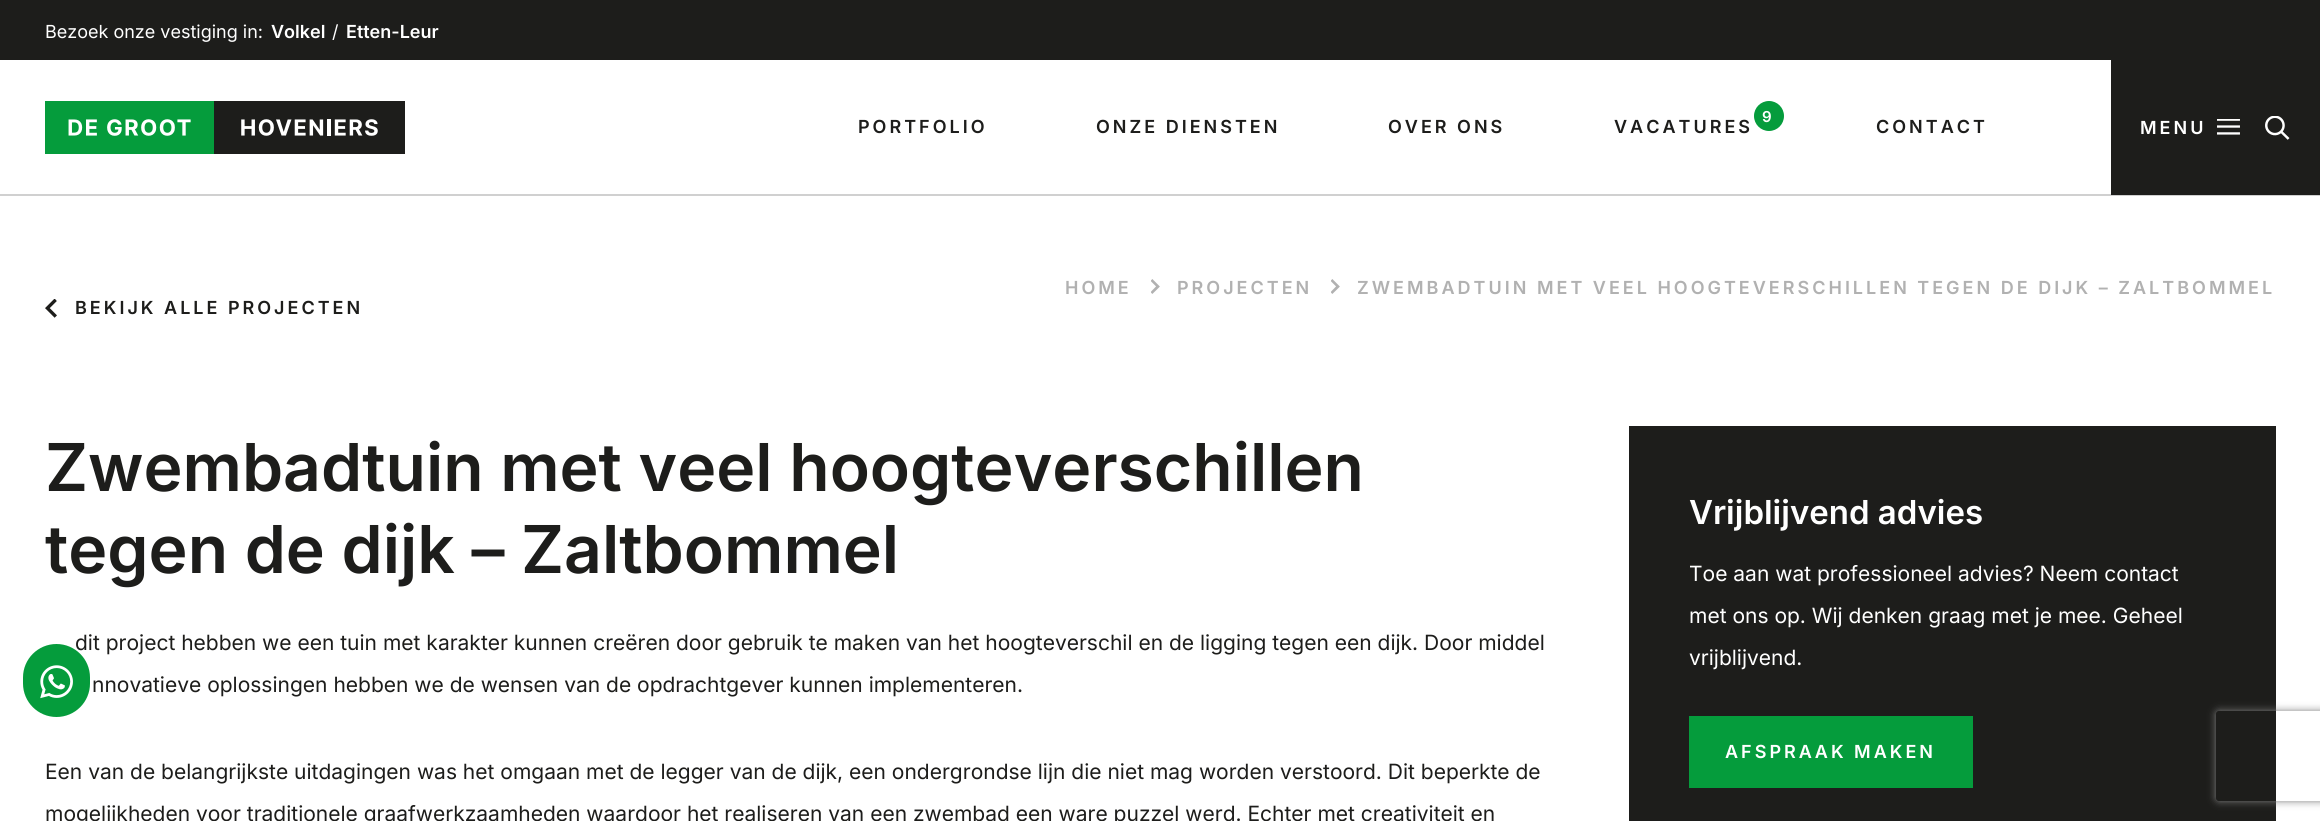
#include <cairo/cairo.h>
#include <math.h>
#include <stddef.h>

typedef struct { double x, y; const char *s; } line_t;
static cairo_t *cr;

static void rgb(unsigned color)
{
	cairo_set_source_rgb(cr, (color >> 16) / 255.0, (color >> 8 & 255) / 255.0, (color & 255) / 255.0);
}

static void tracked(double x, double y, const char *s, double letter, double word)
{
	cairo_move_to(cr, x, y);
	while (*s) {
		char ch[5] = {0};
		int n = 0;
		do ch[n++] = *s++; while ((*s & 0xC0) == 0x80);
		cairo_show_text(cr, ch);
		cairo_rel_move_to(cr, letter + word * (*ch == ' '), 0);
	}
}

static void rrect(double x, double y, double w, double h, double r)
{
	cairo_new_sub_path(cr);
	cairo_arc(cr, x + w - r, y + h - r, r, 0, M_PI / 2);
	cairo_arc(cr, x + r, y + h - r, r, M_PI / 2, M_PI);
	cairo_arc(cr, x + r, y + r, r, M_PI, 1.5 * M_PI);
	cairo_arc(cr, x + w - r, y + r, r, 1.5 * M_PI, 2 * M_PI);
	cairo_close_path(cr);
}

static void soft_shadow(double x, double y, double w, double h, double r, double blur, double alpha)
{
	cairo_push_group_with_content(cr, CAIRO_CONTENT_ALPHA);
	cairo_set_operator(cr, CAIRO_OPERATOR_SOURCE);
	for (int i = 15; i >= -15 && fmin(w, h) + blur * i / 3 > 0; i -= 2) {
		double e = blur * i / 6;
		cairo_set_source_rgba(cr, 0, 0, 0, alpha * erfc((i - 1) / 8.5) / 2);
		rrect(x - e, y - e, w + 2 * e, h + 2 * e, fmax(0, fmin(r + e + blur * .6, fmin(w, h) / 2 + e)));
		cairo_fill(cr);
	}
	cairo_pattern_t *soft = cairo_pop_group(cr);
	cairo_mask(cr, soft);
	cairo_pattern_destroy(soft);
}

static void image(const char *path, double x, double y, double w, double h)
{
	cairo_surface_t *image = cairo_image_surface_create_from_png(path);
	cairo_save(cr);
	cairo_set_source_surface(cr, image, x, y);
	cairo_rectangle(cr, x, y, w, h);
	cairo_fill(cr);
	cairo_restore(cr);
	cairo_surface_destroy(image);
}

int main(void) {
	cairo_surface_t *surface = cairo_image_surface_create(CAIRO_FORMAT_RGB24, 2320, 821);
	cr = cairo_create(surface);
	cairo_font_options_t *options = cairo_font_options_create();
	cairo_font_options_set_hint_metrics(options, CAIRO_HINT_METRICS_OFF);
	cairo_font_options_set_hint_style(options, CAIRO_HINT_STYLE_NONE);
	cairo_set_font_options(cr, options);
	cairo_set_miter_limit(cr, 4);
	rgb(0xffffff);
	cairo_paint(cr);
	rgb(0x1d1d1b);
	cairo_rectangle(cr, 0, 0, 2320, 60);
	cairo_fill(cr);
	rgb(0xd0d0d0);
	cairo_rectangle(cr, 0, 194, 2320, 2);
	cairo_fill(cr);
	image("img/1.png", 45, 101, 360, 53);
	rgb(0x059c3c);
	cairo_arc(cr, 1769, 116, 15, 0, 2 * M_PI);
	cairo_fill(cr);
	rgb(0x1d1d1b);
	cairo_rectangle(cr, 2111, 60, 209, 135);
	cairo_fill(cr);
	image("img/2.png", 2217, 119, 23, 16);
	image("img/3.png", 2265, 116, 25, 24);
	image("img/5.png", 1151, 279, 9, 15);
	image("img/5.png", 1331, 279, 9, 15);
	image("img/6.png", 45, 299, 12, 19);
	cairo_rectangle(cr, 1629, 426, 647, 395);
	cairo_fill(cr);
	rgb(0x059c3c);
	cairo_rectangle(cr, 1689, 716, 284, 72);
	cairo_fill(cr);
	cairo_save(cr);
	cairo_set_fill_rule(cr, CAIRO_FILL_RULE_EVEN_ODD);
	cairo_new_path(cr);
	cairo_move_to(cr, 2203, 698);
	cairo_line_to(cr, 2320, 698);
	cairo_line_to(cr, 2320, 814);
	cairo_line_to(cr, 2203, 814);
	cairo_close_path(cr);
	cairo_move_to(cr, 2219, 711);
	cairo_line_to(cr, 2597, 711);
	cairo_curve_to(cr, 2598.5, 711, 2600, 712.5, 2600, 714);
	cairo_line_to(cr, 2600, 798);
	cairo_curve_to(cr, 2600, 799.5, 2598.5, 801, 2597, 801);
	cairo_line_to(cr, 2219, 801);
	cairo_curve_to(cr, 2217.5, 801, 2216, 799.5, 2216, 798);
	cairo_line_to(cr, 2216, 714);
	cairo_curve_to(cr, 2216, 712.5, 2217.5, 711, 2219, 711);
	cairo_close_path(cr);
	cairo_clip(cr);
	rgb(0x808080);
	soft_shadow(2216, 711, 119, 90, 3, 4, 1);
	cairo_restore(cr);
	cairo_select_font_face(cr, "Inter", CAIRO_FONT_SLANT_NORMAL, CAIRO_FONT_WEIGHT_NORMAL);
	cairo_set_font_size(cr, 18);
	rgb(0xffffff);
	cairo_move_to(cr, 45, 38);
	cairo_show_text(cr, "Bezoek onze vestiging in:");
	cairo_select_font_face(cr, "Inter SemiBold", CAIRO_FONT_SLANT_NORMAL, CAIRO_FONT_WEIGHT_NORMAL);
	cairo_move_to(cr, 271, 38);
	cairo_show_text(cr, "Volkel");
	cairo_select_font_face(cr, "Inter", CAIRO_FONT_SLANT_NORMAL, CAIRO_FONT_WEIGHT_NORMAL);
	cairo_move_to(cr, 332, 38);
	cairo_show_text(cr, "/");
	cairo_select_font_face(cr, "Inter SemiBold", CAIRO_FONT_SLANT_NORMAL, CAIRO_FONT_WEIGHT_NORMAL);
	cairo_move_to(cr, 346, 38);
	cairo_show_text(cr, "Etten-Leur");
	rgb(0x1d1d1b);
	{
		static const line_t items[] = {
			{858, 133, "PORTFOLIO"},
			{1096, 133, "ONZE DIENSTEN"},
			{1388, 133, "OVER ONS"},
		};
		for (size_t i = 0; i < sizeof items / sizeof *items; i++) {
			tracked(items[i].x, items[i].y, items[i].s, 3, 0);
		}
	}
	cairo_set_font_size(cr, 15);
	rgb(0xffffff);
	tracked(1762, 122, "9", 3, 0);
	cairo_set_font_size(cr, 18);
	rgb(0x1d1d1b);
	tracked(1614, 133, "VACATURES", 3, 0);
	tracked(1876, 133, "CONTACT", 3, 0);
	rgb(0xffffff);
	tracked(2140, 134, "MENU", 3, 0);
	rgb(0xb1b1b1);
	{
		static const line_t items[] = {
			{1065, 294, "HOME"},
			{1177, 294, "PROJECTEN"},
			{1357, 294, "ZWEMBADTUIN MET VEEL HOOGTEVERSCHILLEN TEGEN DE DIJK – ZALTBOMMEL"},
		};
		for (size_t i = 0; i < sizeof items / sizeof *items; i++) {
			tracked(items[i].x, items[i].y, items[i].s, 3, 0);
		}
	}
	rgb(0x1d1d1b);
	tracked(75, 314, "BEKIJK ALLE PROJECTEN", 3, 0);
	cairo_set_font_size(cr, 66);
	cairo_move_to(cr, 45, 491);
	cairo_show_text(cr, "Zwembadtuin met veel hoogteverschillen");
	cairo_move_to(cr, 45, 573);
	cairo_show_text(cr, "tegen de dijk – Zaltbommel");
	cairo_select_font_face(cr, "Inter", CAIRO_FONT_SLANT_NORMAL, CAIRO_FONT_WEIGHT_NORMAL);
	cairo_set_font_size(cr, 21);
	cairo_move_to(cr, 75, 650);
	cairo_show_text(cr, "dit project hebben we een tuin met karakter kunnen creëren door gebruik te maken van het hoogteverschil en de ligging tegen een dijk. Door middel");
	rgb(0x059c3c);
	rrect(23, 644, 67, 73, 33.5);
	cairo_fill(cr);
	image("img/4.png", 40, 665, 33, 34);
	rgb(0x1d1d1b);
	{
		static const line_t items[] = {
			{92, 692, "nnovatieve oplossingen hebben we de wensen van de opdrachtgever kunnen implementeren."},
			{45, 779, "Een van de belangrijkste uitdagingen was het omgaan met de legger van de dijk, een ondergrondse lijn die niet mag worden verstoord. Dit beperkte de"},
			{45, 821, "mogelijkheden voor traditionele graafwerkzaamheden waardoor het realiseren van een zwembad een ware puzzel werd. Echter met creativiteit en"},
		};
		for (size_t i = 0; i < sizeof items / sizeof *items; i++) {
			cairo_move_to(cr, items[i].x, items[i].y);
			cairo_show_text(cr, items[i].s);
		}
	}
	cairo_select_font_face(cr, "Inter SemiBold", CAIRO_FONT_SLANT_NORMAL, CAIRO_FONT_WEIGHT_NORMAL);
	cairo_set_font_size(cr, 33);
	rgb(0xffffff);
	cairo_move_to(cr, 1689, 524);
	cairo_show_text(cr, "Vrijblijvend advies");
	cairo_select_font_face(cr, "Inter", CAIRO_FONT_SLANT_NORMAL, CAIRO_FONT_WEIGHT_NORMAL);
	cairo_set_font_size(cr, 21);
	{
		static const line_t items[] = {
			{1689, 581, "Toe aan wat professioneel advies? Neem contact"},
			{1689, 623, "met ons op. Wij denken graag met je mee. Geheel"},
			{1689, 665, "vrijblijvend."},
		};
		for (size_t i = 0; i < sizeof items / sizeof *items; i++) {
			cairo_move_to(cr, items[i].x, items[i].y);
			cairo_show_text(cr, items[i].s);
		}
	}
	cairo_select_font_face(cr, "Inter SemiBold", CAIRO_FONT_SLANT_NORMAL, CAIRO_FONT_WEIGHT_NORMAL);
	cairo_set_font_size(cr, 18);
	tracked(1725, 758, "AFSPRAAK MAKEN", 3, 0);
	cairo_surface_write_to_png(surface, "page.png");
	cairo_font_options_destroy(options);
	cairo_destroy(cr);
	cairo_surface_destroy(surface);
	return 0;
}
